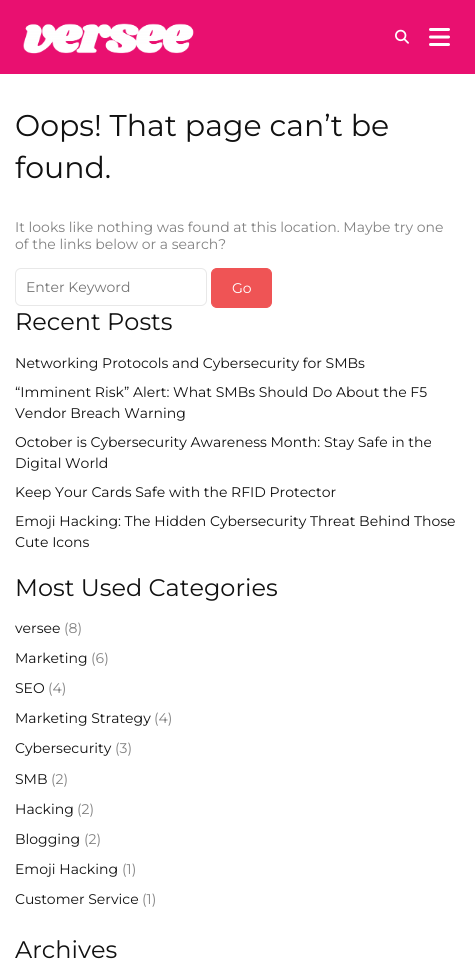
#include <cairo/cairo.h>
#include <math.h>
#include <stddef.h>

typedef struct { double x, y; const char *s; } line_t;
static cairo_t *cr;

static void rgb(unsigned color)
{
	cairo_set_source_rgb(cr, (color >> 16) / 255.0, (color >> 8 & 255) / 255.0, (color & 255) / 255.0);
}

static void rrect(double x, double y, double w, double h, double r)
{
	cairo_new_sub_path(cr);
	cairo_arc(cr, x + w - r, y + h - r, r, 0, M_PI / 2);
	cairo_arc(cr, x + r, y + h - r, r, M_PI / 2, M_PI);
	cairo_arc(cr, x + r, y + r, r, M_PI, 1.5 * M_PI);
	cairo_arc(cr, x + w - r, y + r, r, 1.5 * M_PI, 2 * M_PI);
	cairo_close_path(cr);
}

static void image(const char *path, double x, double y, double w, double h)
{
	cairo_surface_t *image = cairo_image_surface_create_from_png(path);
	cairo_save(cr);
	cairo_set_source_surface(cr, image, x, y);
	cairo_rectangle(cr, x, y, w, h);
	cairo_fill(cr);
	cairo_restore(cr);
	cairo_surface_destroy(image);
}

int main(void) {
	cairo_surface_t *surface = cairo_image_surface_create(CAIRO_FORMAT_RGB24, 475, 960);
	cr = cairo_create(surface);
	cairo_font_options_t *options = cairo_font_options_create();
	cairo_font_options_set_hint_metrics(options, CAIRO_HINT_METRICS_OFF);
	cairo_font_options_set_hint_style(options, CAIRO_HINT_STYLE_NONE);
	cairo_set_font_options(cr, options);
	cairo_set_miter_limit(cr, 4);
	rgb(0xffffff);
	cairo_paint(cr);
	rgb(0xe91070);
	cairo_rectangle(cr, 0, 0, 475, 74);
	cairo_fill(cr);
	image("img/1.png", 23, 23, 171, 31);
	image("img/2.png", 395, 29, 14, 15);
	image("img/3.png", 429, 28, 21, 18);
	rrect(15.5, 268.5, 191, 37, 5.5);
	rgb(0xe8e8e8);
	cairo_set_line_width(cr, 1);
	cairo_stroke(cr);
	rgb(0xef5455);
	rrect(211.5, 268.5, 60, 39, 5.5);
	cairo_fill_preserve(cr);
	cairo_stroke(cr);
	cairo_select_font_face(cr, "Montserrat Thin", CAIRO_FONT_SLANT_NORMAL, CAIRO_FONT_WEIGHT_NORMAL);
	cairo_set_font_size(cr, 30);
	rgb(0x111111);
	cairo_move_to(cr, 15, 136);
	cairo_show_text(cr, "Oops! That page can’t be");
	cairo_move_to(cr, 15, 178);
	cairo_show_text(cr, "found.");
	cairo_set_font_size(cr, 14);
	rgb(0x828282);
	cairo_move_to(cr, 15, 232);
	cairo_show_text(cr, "It looks like nothing was found at this location. Maybe try one");
	cairo_move_to(cr, 15, 249);
	cairo_show_text(cr, "of the links below or a search?");
	rgb(0x757575);
	cairo_move_to(cr, 26, 292);
	cairo_show_text(cr, "Enter Keyword");
	rgb(0xffffff);
	cairo_move_to(cr, 232, 293);
	cairo_show_text(cr, "Go");
	cairo_set_font_size(cr, 24);
	rgb(0x111111);
	cairo_move_to(cr, 15, 330);
	cairo_show_text(cr, "Recent Posts");
	cairo_set_font_size(cr, 14);
	{
		static const line_t items[] = {
			{15, 368, "Networking Protocols and Cybersecurity for SMBs"},
			{15, 397, "“Imminent Risk” Alert: What SMBs Should Do About the F5"},
			{15, 418, "Vendor Breach Warning"},
			{15, 447, "October is Cybersecurity Awareness Month: Stay Safe in the"},
			{15, 468, "Digital World"},
			{15, 497, "Keep Your Cards Safe with the RFID Protector"},
			{15, 526, "Emoji Hacking: The Hidden Cybersecurity Threat Behind Those"},
			{15, 547, "Cute Icons"},
		};
		for (size_t i = 0; i < sizeof items / sizeof *items; i++) {
			cairo_move_to(cr, items[i].x, items[i].y);
			cairo_show_text(cr, items[i].s);
		}
	}
	cairo_set_font_size(cr, 24);
	cairo_move_to(cr, 15, 596);
	cairo_show_text(cr, "Most Used Categories");
	cairo_set_font_size(cr, 14);
	cairo_move_to(cr, 15, 633);
	cairo_show_text(cr, "versee");
	rgb(0x828282);
	cairo_move_to(cr, 64, 633);
	cairo_show_text(cr, "(8)");
	rgb(0x111111);
	cairo_move_to(cr, 15, 663);
	cairo_show_text(cr, "Marketing");
	rgb(0x828282);
	cairo_move_to(cr, 91, 663);
	cairo_show_text(cr, "(6)");
	rgb(0x111111);
	cairo_move_to(cr, 15, 693);
	cairo_show_text(cr, "SEO");
	rgb(0x828282);
	cairo_move_to(cr, 48, 693);
	cairo_show_text(cr, "(4)");
	rgb(0x111111);
	cairo_move_to(cr, 15, 723);
	cairo_show_text(cr, "Marketing Strategy");
	rgb(0x828282);
	cairo_move_to(cr, 154, 723);
	cairo_show_text(cr, "(4)");
	rgb(0x111111);
	cairo_move_to(cr, 15, 753);
	cairo_show_text(cr, "Cybersecurity");
	rgb(0x828282);
	cairo_move_to(cr, 115, 753);
	cairo_show_text(cr, "(3)");
	rgb(0x111111);
	cairo_move_to(cr, 15, 784);
	cairo_show_text(cr, "SMB");
	rgb(0x828282);
	cairo_move_to(cr, 51, 784);
	cairo_show_text(cr, "(2)");
	rgb(0x111111);
	cairo_move_to(cr, 15, 814);
	cairo_show_text(cr, "Hacking");
	rgb(0x828282);
	cairo_move_to(cr, 77, 814);
	cairo_show_text(cr, "(2)");
	rgb(0x111111);
	cairo_move_to(cr, 15, 844);
	cairo_show_text(cr, "Blogging");
	rgb(0x828282);
	cairo_move_to(cr, 84, 844);
	cairo_show_text(cr, "(2)");
	rgb(0x111111);
	cairo_move_to(cr, 15, 874);
	cairo_show_text(cr, "Emoji Hacking");
	rgb(0x828282);
	cairo_move_to(cr, 122, 874);
	cairo_show_text(cr, "(1)");
	rgb(0x111111);
	cairo_move_to(cr, 15, 904);
	cairo_show_text(cr, "Customer Service");
	rgb(0x828282);
	cairo_move_to(cr, 142, 904);
	cairo_show_text(cr, "(1)");
	cairo_set_font_size(cr, 24);
	rgb(0x111111);
	cairo_move_to(cr, 15, 958);
	cairo_show_text(cr, "Archives");
	cairo_surface_write_to_png(surface, "page.png");
	cairo_font_options_destroy(options);
	cairo_destroy(cr);
	cairo_surface_destroy(surface);
	return 0;
}
